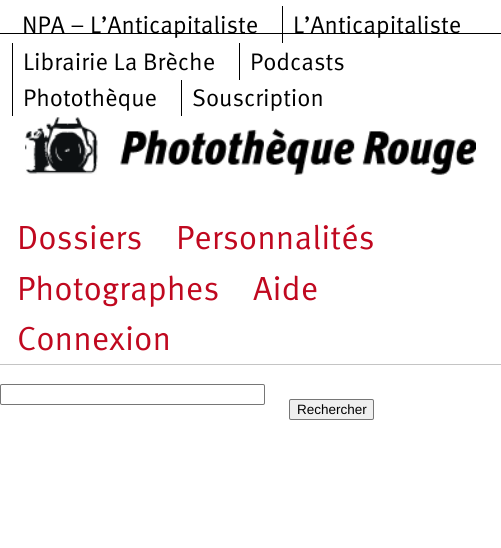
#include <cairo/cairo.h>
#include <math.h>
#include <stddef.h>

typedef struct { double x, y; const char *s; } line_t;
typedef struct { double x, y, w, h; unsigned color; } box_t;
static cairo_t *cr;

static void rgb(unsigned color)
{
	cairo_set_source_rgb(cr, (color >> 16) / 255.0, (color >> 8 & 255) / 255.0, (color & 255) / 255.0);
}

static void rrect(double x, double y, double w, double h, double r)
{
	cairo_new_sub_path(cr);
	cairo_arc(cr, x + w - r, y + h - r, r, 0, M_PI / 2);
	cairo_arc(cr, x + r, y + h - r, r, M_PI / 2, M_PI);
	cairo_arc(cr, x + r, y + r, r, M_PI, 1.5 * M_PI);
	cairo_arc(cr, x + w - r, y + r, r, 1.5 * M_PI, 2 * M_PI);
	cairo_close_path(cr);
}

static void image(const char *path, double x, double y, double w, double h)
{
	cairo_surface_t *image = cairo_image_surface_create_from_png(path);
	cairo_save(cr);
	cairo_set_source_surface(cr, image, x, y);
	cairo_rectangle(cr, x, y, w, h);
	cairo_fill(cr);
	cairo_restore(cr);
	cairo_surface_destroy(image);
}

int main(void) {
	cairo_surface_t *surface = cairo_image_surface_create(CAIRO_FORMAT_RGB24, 501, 548);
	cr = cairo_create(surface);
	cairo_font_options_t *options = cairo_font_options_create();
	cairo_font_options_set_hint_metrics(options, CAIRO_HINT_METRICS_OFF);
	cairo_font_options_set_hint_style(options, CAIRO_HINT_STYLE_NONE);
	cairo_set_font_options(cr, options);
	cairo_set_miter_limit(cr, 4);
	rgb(0xffffff);
	cairo_paint(cr);
	{
		static const box_t items[] = {
			{0, 364, 501, 1, 0xc4c4c4},
			{0, 33, 501, 1, 0x000000},
			{282, 6, 1, 37, 0x000000},
			{12, 43, 1, 73, 0x000000},
			{239, 43, 1, 37, 0x000000},
			{181, 80, 1, 36, 0x000000},
		};
		for (size_t i = 0; i < sizeof items / sizeof *items; i++) {
			rgb(items[i].color);
			cairo_rectangle(cr, items[i].x, items[i].y, items[i].w, items[i].h);
			cairo_fill(cr);
		}
	}
	image("img/1.png", 25, 117, 451, 58);
	rrect(0.5, 384.5, 264, 20, 1.5);
	rgb(0x767676);
	cairo_set_line_width(cr, 1);
	cairo_stroke(cr);
	rgb(0xefefef);
	rrect(289.5, 399.5, 84, 20, 1.5);
	cairo_fill_preserve(cr);
	rgb(0x767676);
	cairo_stroke(cr);
	cairo_select_font_face(cr, "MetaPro", CAIRO_FONT_SLANT_NORMAL, CAIRO_FONT_WEIGHT_NORMAL);
	cairo_set_font_size(cr, 24);
	rgb(0x000000);
	{
		static const line_t items[] = {
			{22, 33, "NPA – L’Anticapitaliste"},
			{293, 33, "L’Anticapitaliste"},
			{23, 70, "Librairie La Brèche"},
			{250, 70, "Podcasts"},
			{23, 106, "Photothèque"},
			{192, 106, "Souscription"},
		};
		for (size_t i = 0; i < sizeof items / sizeof *items; i++) {
			cairo_move_to(cr, items[i].x, items[i].y);
			cairo_show_text(cr, items[i].s);
		}
	}
	cairo_set_font_size(cr, 33.5);
	rgb(0xc0081f);
	{
		static const line_t items[] = {
			{17, 249, "Dossiers"},
			{176, 249, "Personnalités"},
			{17, 300, "Photographes"},
			{253, 300, "Aide"},
			{17, 350, "Connexion"},
		};
		for (size_t i = 0; i < sizeof items / sizeof *items; i++) {
			cairo_move_to(cr, items[i].x, items[i].y);
			cairo_show_text(cr, items[i].s);
		}
	}
	cairo_select_font_face(cr, "Liberation Sans", CAIRO_FONT_SLANT_NORMAL, CAIRO_FONT_WEIGHT_NORMAL);
	cairo_set_font_size(cr, 13.5);
	rgb(0x000000);
	cairo_move_to(cr, 297, 414);
	cairo_show_text(cr, "Rechercher");
	cairo_surface_write_to_png(surface, "page.png");
	cairo_font_options_destroy(options);
	cairo_destroy(cr);
	cairo_surface_destroy(surface);
	return 0;
}
